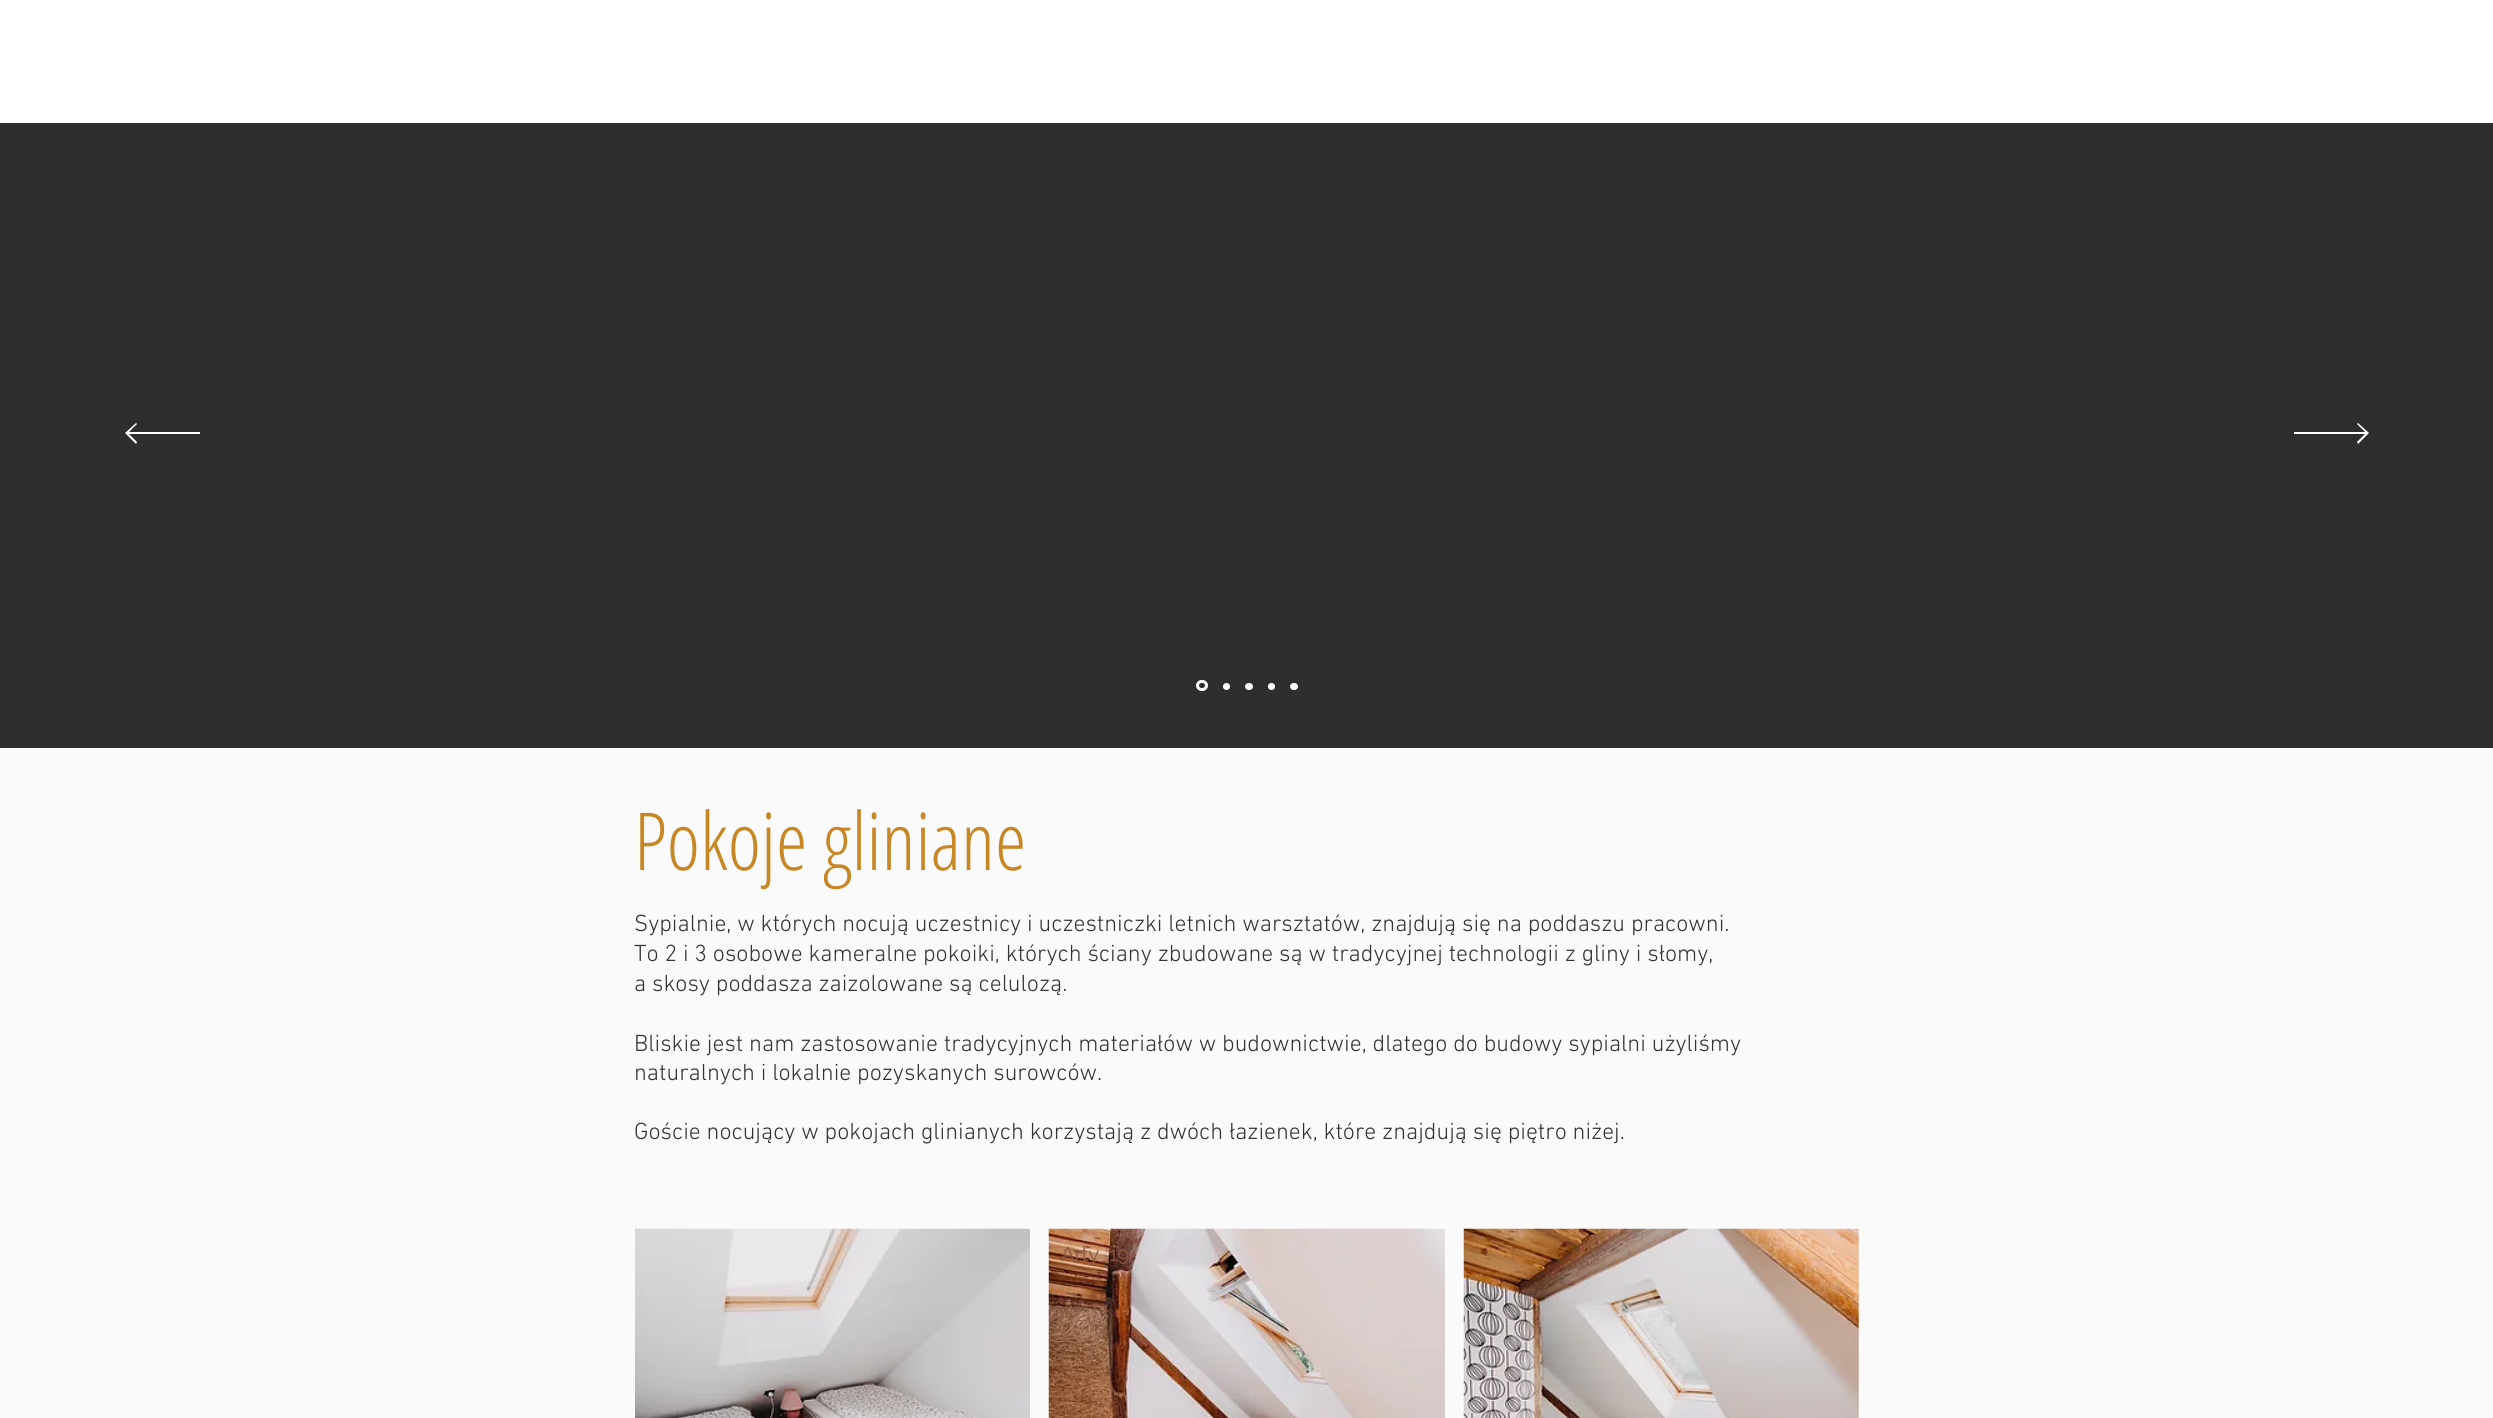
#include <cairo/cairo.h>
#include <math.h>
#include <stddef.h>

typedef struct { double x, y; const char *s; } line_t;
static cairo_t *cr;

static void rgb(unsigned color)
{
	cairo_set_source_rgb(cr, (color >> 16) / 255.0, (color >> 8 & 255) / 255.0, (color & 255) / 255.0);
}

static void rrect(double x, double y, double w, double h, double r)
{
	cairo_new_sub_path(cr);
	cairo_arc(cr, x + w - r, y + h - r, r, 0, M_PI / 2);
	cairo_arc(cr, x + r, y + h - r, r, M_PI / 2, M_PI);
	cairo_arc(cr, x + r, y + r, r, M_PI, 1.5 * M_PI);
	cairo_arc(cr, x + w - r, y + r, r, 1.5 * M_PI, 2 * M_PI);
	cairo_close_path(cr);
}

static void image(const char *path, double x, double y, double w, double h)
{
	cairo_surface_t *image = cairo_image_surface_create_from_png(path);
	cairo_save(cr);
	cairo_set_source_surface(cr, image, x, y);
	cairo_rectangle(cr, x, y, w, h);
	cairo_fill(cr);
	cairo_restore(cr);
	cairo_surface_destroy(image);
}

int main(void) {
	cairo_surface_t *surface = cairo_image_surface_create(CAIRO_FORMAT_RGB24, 2493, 1418);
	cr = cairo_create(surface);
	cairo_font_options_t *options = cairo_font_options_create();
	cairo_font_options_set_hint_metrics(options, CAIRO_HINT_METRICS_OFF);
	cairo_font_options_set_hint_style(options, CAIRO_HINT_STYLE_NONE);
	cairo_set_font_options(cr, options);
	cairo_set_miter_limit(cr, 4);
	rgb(0xffffff);
	cairo_paint(cr);
	rgb(0x2e2e2e);
	cairo_rectangle(cr, 0, 123, 2493, 625);
	cairo_fill(cr);
	rgb(0xffffff);
	cairo_new_path(cr);
	cairo_move_to(cr, 136, 423);
	cairo_line_to(cr, 137, 424);
	cairo_line_to(cr, 129, 432);
	cairo_line_to(cr, 200, 432);
	cairo_line_to(cr, 200, 434);
	cairo_line_to(cr, 129, 434);
	cairo_line_to(cr, 137, 442);
	cairo_line_to(cr, 136, 444);
	cairo_line_to(cr, 125, 433);
	cairo_close_path(cr);
	cairo_fill(cr);
	cairo_new_path(cr);
	cairo_move_to(cr, 2358, 423);
	cairo_line_to(cr, 2357, 424);
	cairo_line_to(cr, 2365, 432);
	cairo_line_to(cr, 2294, 432);
	cairo_line_to(cr, 2294, 434);
	cairo_line_to(cr, 2365, 434);
	cairo_line_to(cr, 2357, 442);
	cairo_line_to(cr, 2358, 444);
	cairo_line_to(cr, 2369, 433);
	cairo_close_path(cr);
	cairo_fill(cr);
	rrect(1197.5, 681.5, 9, 8, 4);
	cairo_set_line_width(cr, 3);
	cairo_stroke(cr);
	cairo_arc(cr, 1226.5, 686.5, 3.5, 0, 2 * M_PI);
	cairo_fill(cr);
	rrect(1245, 683, 8, 7, 3.5);
	cairo_fill(cr);
	cairo_arc(cr, 1271.5, 686.5, 3.5, 0, 2 * M_PI);
	cairo_fill(cr);
	rrect(1290, 683, 8, 7, 3.5);
	cairo_fill(cr);
	rgb(0xfafafa);
	cairo_rectangle(cr, 0, 748, 2493, 670);
	cairo_fill(cr);
	image("img/1.png", 635, 1228, 395, 190);
	image("img/2.png", 1048, 1228, 397, 190);
	image("img/3.png", 1463, 1228, 396, 190);
	cairo_select_font_face(cr, "Open Sans Condensed Light", CAIRO_FONT_SLANT_NORMAL, CAIRO_FONT_WEIGHT_NORMAL);
	cairo_set_font_size(cr, 80);
	rgb(0xc78725);
	cairo_move_to(cr, 634, 870);
	cairo_show_text(cr, "Pokoje gliniane");
	cairo_select_font_face(cr, "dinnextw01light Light", CAIRO_FONT_SLANT_NORMAL, CAIRO_FONT_WEIGHT_NORMAL);
	cairo_set_font_size(cr, 23.75);
	rgb(0x333333);
	{
		static const line_t items[] = {
			{634, 931, "Sypialnie, w których nocują uczestnicy i uczestniczki letnich warsztatów, znajdują się na poddaszu pracowni."},
			{634, 961, "To 2 i 3 osobowe kameralne pokoiki, których ściany zbudowane są w tradycyjnej technologii z gliny i słomy,"},
			{634, 991, "a skosy poddasza zaizolowane są celulozą."},
			{634, 1051, "Bliskie jest nam zastosowanie tradycyjnych materiałów w budownictwie, dlatego do budowy sypialni użyliśmy"},
			{634, 1080, "naturalnych i lokalnie pozyskanych surowców."},
			{634, 1139, "Goście nocujący w pokojach glinianych korzystają z dwóch łazienek, które znajdują się piętro niżej."},
		};
		for (size_t i = 0; i < sizeof items / sizeof *items; i++) {
			cairo_move_to(cr, items[i].x, items[i].y);
			cairo_show_text(cr, items[i].s);
		}
	}
	cairo_select_font_face(cr, "Raleway", CAIRO_FONT_SLANT_NORMAL, CAIRO_FONT_WEIGHT_NORMAL);
	cairo_set_font_size(cr, 20);
	rgb(0x8a5840);
	cairo_move_to(cr, 1061, 1261);
	cairo_show_text(cr, "Arty_19");
	cairo_surface_write_to_png(surface, "page.png");
	cairo_font_options_destroy(options);
	cairo_destroy(cr);
	cairo_surface_destroy(surface);
	return 0;
}
